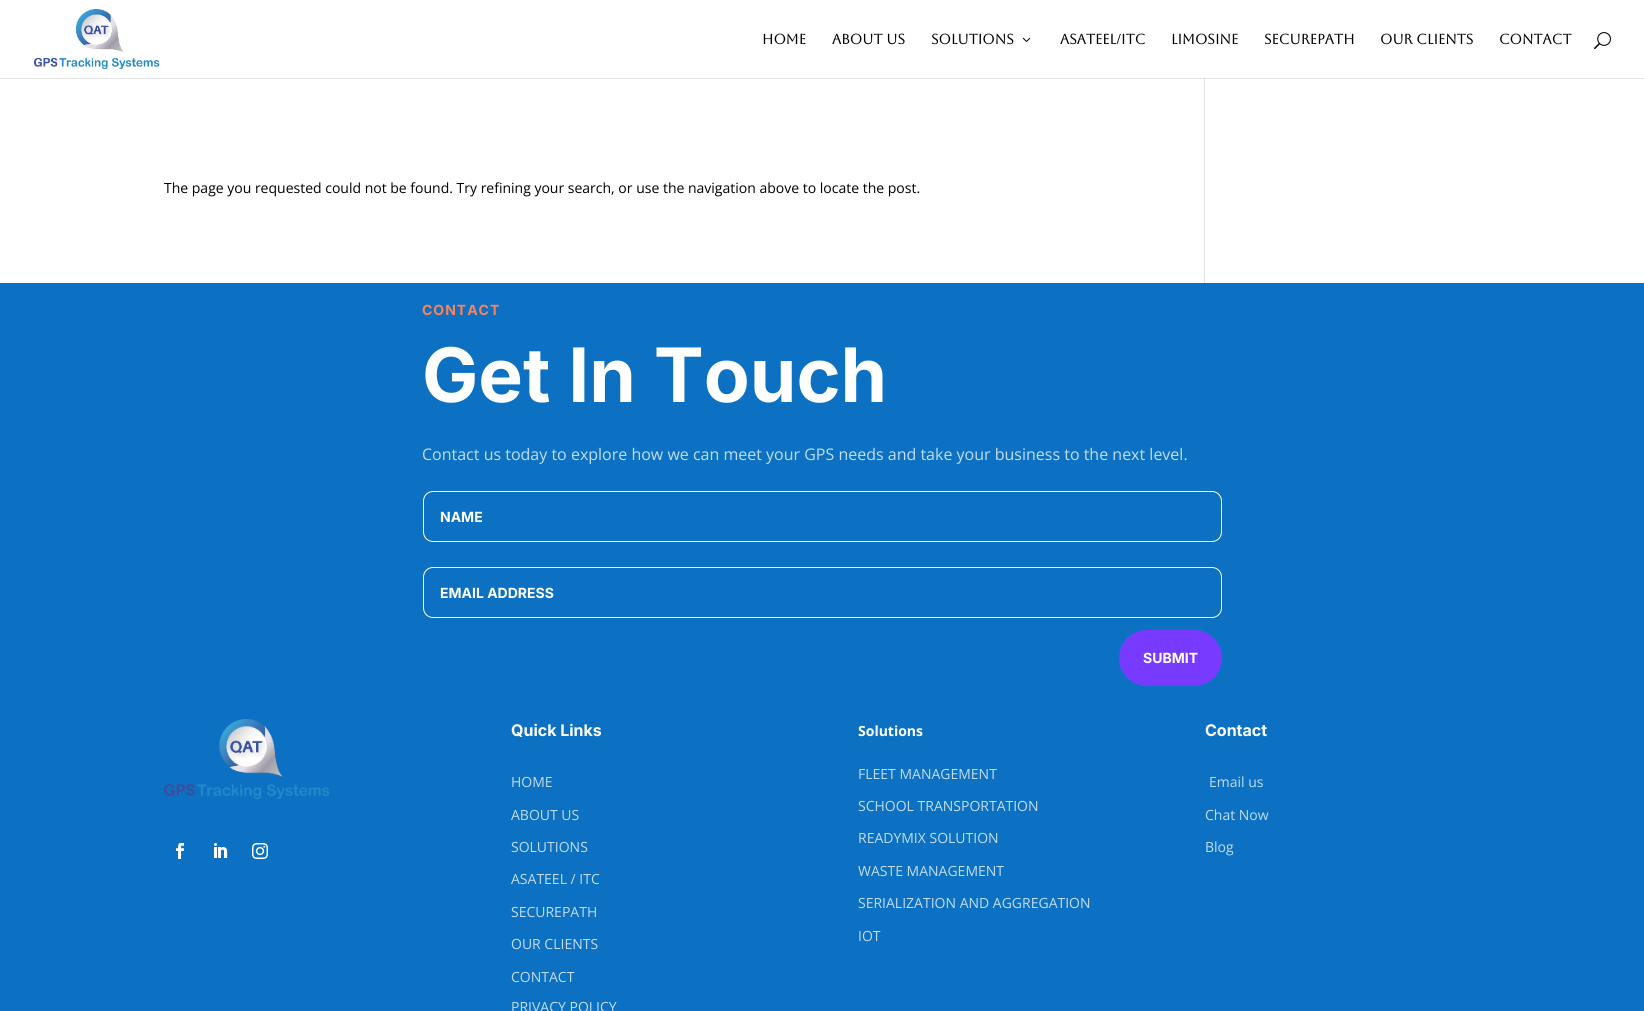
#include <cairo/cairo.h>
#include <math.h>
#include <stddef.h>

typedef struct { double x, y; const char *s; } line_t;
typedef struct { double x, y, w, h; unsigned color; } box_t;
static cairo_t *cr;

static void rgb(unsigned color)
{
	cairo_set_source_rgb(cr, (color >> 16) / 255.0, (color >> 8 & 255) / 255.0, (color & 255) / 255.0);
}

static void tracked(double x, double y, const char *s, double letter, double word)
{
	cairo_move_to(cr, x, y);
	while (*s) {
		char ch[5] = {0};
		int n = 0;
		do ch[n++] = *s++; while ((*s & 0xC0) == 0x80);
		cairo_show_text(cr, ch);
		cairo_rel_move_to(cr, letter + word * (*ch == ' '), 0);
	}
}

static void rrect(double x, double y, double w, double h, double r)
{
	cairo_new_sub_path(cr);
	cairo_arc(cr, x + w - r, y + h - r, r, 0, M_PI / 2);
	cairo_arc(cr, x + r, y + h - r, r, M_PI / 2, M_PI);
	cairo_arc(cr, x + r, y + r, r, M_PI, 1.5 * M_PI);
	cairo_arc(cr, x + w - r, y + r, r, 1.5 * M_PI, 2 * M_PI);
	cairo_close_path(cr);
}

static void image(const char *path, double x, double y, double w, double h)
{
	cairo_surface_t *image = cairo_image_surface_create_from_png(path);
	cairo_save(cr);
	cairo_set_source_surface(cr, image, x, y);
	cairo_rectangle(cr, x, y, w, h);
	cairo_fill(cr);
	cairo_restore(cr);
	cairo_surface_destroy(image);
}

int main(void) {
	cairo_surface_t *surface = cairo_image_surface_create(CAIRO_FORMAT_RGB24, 1644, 1011);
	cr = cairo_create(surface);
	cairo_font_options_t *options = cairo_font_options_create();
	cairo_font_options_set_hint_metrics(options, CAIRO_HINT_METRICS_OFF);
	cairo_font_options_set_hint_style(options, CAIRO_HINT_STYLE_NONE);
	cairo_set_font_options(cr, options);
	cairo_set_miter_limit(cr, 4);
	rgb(0xffffff);
	cairo_paint(cr);
	rgb(0xe6e6e6);
	cairo_rectangle(cr, 0, 78, 1644, 1);
	cairo_fill(cr);
	image("img/1.png", 34, 9, 126, 60);
	image("img/2.png", 1022, 37, 9, 5);
	image("img/3.png", 1594, 32, 17, 18);
	{
		static const box_t items[] = {
			{1204, 78, 1, 205, 0xe2e2e2},
			{1204, 78, 1, 1, 0xcbcbcb},
			{0, 283, 1644, 728, 0x0c71c3},
		};
		for (size_t i = 0; i < sizeof items / sizeof *items; i++) {
			rgb(items[i].color);
			cairo_rectangle(cr, items[i].x, items[i].y, items[i].w, items[i].h);
			cairo_fill(cr);
		}
	}
	rrect(423.5, 491.5, 798, 50, 9.5);
	rgb(0xffffff);
	cairo_set_line_width(cr, 1);
	cairo_stroke(cr);
	rrect(423.5, 567.5, 798, 50, 9.5);
	cairo_stroke(cr);
	rgb(0x793aff);
	rrect(1119, 630, 103, 56, 28);
	cairo_fill(cr);
	image("img/4.png", 164, 719, 166, 80);
	image("img/5.png", 176, 843, 8, 16);
	image("img/6.png", 214, 843, 14, 15);
	image("img/7.png", 252, 843, 16, 16);
	cairo_select_font_face(cr, "Aboreto", CAIRO_FONT_SLANT_NORMAL, CAIRO_FONT_WEIGHT_BOLD);
	cairo_set_font_size(cr, 14);
	rgb(0x000000);
	{
		static const line_t items[] = {
			{762, 44, "HOME"},
			{832, 44, "ABOUT US"},
			{931, 44, "SOLUTIONS"},
			{1060, 44, "ASATEEL/ITC"},
			{1171, 44, "LIMOSINE"},
			{1264, 44, "SECUREPATH"},
			{1380, 44, "Our clients"},
			{1499, 44, "CONTACT"},
		};
		for (size_t i = 0; i < sizeof items / sizeof *items; i++) {
			cairo_move_to(cr, items[i].x, items[i].y);
			cairo_show_text(cr, items[i].s);
		}
	}
	cairo_select_font_face(cr, "Open Sans", CAIRO_FONT_SLANT_NORMAL, CAIRO_FONT_WEIGHT_NORMAL);
	cairo_move_to(cr, 164, 193);
	cairo_show_text(cr, "The page you requested could not be found. Try refining your search, or use the navigation above to locate the post.");
	cairo_select_font_face(cr, "Inter", CAIRO_FONT_SLANT_NORMAL, CAIRO_FONT_WEIGHT_BOLD);
	rgb(0xff8154);
	tracked(422, 315, "CONTACT", 1, 0);
	cairo_set_font_size(cr, 75);
	rgb(0xffffff);
	cairo_move_to(cr, 422, 402);
	cairo_show_text(cr, "Get In Touch");
	cairo_select_font_face(cr, "Open Sans", CAIRO_FONT_SLANT_NORMAL, CAIRO_FONT_WEIGHT_NORMAL);
	cairo_set_font_size(cr, 16);
	rgb(0xc2dcf0);
	cairo_move_to(cr, 422, 460);
	cairo_show_text(cr, "Contact us today to explore how we can meet your GPS needs and take your business to the next level.");
	cairo_select_font_face(cr, "Inter", CAIRO_FONT_SLANT_NORMAL, CAIRO_FONT_WEIGHT_BOLD);
	cairo_set_font_size(cr, 14);
	rgb(0xffffff);
	{
		static const line_t items[] = {
			{440, 522, "NAME"},
			{440, 598, "EMAIL ADDRESS"},
			{1143, 663, "SUBMIT"},
		};
		for (size_t i = 0; i < sizeof items / sizeof *items; i++) {
			cairo_move_to(cr, items[i].x, items[i].y);
			cairo_show_text(cr, items[i].s);
		}
	}
	cairo_set_font_size(cr, 16);
	cairo_move_to(cr, 511, 736);
	cairo_show_text(cr, "Quick Links");
	cairo_select_font_face(cr, "Open Sans", CAIRO_FONT_SLANT_NORMAL, CAIRO_FONT_WEIGHT_NORMAL);
	cairo_set_font_size(cr, 14);
	rgb(0xc2dcf0);
	{
		static const line_t items[] = {
			{511, 787, "HOME"},
			{511, 820, "ABOUT US"},
			{511, 852, "SOLUTIONS"},
			{511, 884, "ASATEEL / ITC"},
			{511, 917, "SECUREPATH"},
			{511, 949, "OUR CLIENTS"},
			{511, 982, "CONTACT"},
			{511, 1012, "PRIVACY POLICY"},
		};
		for (size_t i = 0; i < sizeof items / sizeof *items; i++) {
			cairo_move_to(cr, items[i].x, items[i].y);
			cairo_show_text(cr, items[i].s);
		}
	}
	cairo_select_font_face(cr, "Open Sans", CAIRO_FONT_SLANT_NORMAL, CAIRO_FONT_WEIGHT_BOLD);
	rgb(0xffffff);
	cairo_move_to(cr, 858, 736);
	cairo_show_text(cr, "Solutions");
	cairo_select_font_face(cr, "Open Sans", CAIRO_FONT_SLANT_NORMAL, CAIRO_FONT_WEIGHT_NORMAL);
	rgb(0xc2dcf0);
	{
		static const line_t items[] = {
			{858, 779, "FLEET MANAGEMENT"},
			{858, 811, "SCHOOL TRANSPORTATION"},
			{858, 843, "READYMIX SOLUTION"},
			{858, 876, "WASTE MANAGEMENT"},
			{858, 908, "SERIALIZATION AND AGGREGATION"},
			{858, 941, "IOT"},
		};
		for (size_t i = 0; i < sizeof items / sizeof *items; i++) {
			cairo_move_to(cr, items[i].x, items[i].y);
			cairo_show_text(cr, items[i].s);
		}
	}
	cairo_select_font_face(cr, "Inter", CAIRO_FONT_SLANT_NORMAL, CAIRO_FONT_WEIGHT_BOLD);
	cairo_set_font_size(cr, 16);
	rgb(0xffffff);
	cairo_move_to(cr, 1205, 736);
	cairo_show_text(cr, "Contact");
	cairo_select_font_face(cr, "Open Sans", CAIRO_FONT_SLANT_NORMAL, CAIRO_FONT_WEIGHT_NORMAL);
	cairo_set_font_size(cr, 14);
	rgb(0xc2dcf0);
	{
		static const line_t items[] = {
			{1209, 787, "Email us"},
			{1205, 820, "Chat Now"},
			{1205, 852, "Blog"},
		};
		for (size_t i = 0; i < sizeof items / sizeof *items; i++) {
			cairo_move_to(cr, items[i].x, items[i].y);
			cairo_show_text(cr, items[i].s);
		}
	}
	cairo_surface_write_to_png(surface, "page.png");
	cairo_font_options_destroy(options);
	cairo_destroy(cr);
	cairo_surface_destroy(surface);
	return 0;
}
